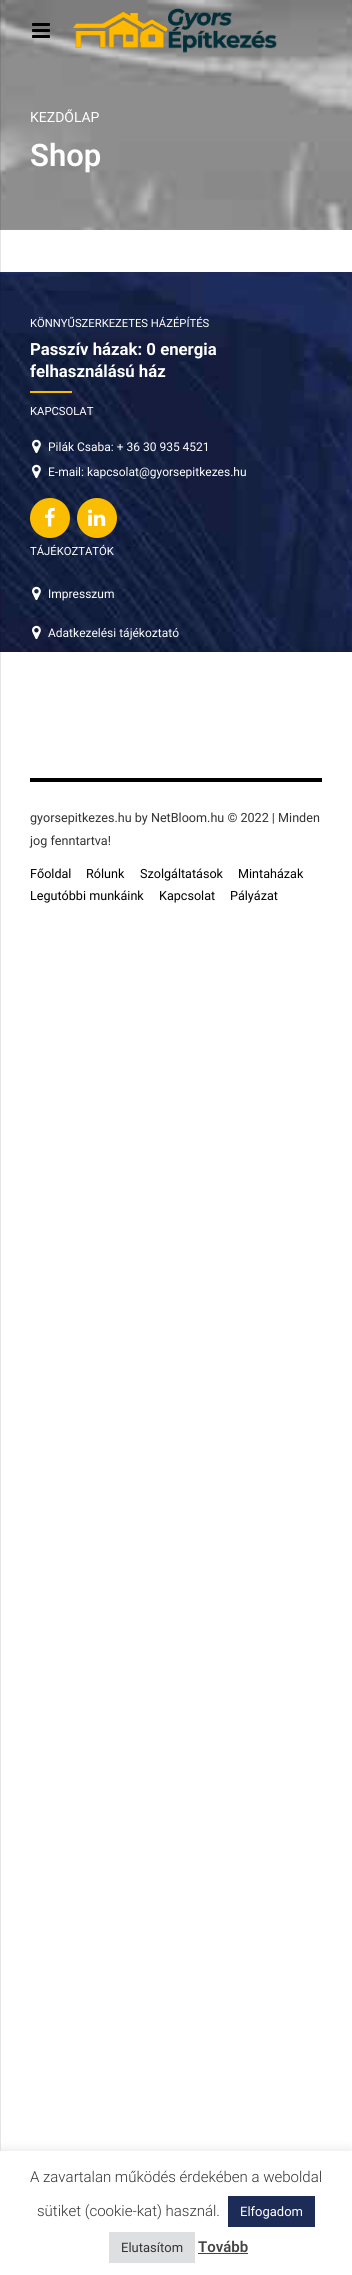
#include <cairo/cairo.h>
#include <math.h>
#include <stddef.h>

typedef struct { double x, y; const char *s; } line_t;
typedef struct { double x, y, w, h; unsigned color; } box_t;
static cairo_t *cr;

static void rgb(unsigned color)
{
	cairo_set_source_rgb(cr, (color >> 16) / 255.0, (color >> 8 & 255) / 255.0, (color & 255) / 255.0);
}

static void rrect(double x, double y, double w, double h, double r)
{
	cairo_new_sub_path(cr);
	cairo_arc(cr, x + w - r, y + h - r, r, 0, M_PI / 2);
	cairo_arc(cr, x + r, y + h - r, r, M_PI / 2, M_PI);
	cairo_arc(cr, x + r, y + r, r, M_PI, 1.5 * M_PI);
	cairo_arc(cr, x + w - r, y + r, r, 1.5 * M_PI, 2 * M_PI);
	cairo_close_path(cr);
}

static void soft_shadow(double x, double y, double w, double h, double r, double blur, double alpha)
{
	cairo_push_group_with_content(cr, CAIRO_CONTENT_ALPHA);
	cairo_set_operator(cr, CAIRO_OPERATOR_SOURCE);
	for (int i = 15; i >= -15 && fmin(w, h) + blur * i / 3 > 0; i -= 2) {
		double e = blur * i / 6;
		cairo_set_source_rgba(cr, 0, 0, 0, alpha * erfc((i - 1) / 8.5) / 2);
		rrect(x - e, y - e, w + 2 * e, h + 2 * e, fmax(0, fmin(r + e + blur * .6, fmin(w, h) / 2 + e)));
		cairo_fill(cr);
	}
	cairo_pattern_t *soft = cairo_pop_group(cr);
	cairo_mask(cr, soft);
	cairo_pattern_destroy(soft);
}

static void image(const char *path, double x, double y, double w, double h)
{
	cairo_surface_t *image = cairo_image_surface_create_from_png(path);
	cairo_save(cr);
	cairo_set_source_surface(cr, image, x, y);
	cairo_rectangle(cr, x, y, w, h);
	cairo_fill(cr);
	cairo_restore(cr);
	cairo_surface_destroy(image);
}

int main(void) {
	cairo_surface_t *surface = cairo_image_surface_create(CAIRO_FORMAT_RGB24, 352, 2275);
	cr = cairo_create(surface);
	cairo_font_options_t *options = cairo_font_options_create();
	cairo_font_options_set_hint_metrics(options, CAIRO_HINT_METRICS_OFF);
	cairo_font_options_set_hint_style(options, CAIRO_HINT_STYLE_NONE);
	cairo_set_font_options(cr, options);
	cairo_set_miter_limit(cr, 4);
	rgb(0xffffff);
	cairo_paint(cr);
	image("img/3.png", 0, 0, 352, 230);
	image("img/4.png", 0, 272, 352, 380);
	cairo_save(cr);
	cairo_rectangle(cr, 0, 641, 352, 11);
	cairo_clip(cr);
	rgb(0x000000);
	soft_shadow(0, 652, 352, 126, 0, 10, 0.15);
	cairo_restore(cr);
	rgb(0xffffff);
	cairo_rectangle(cr, 0, 778, 352, 15);
	cairo_fill(cr);
	cairo_set_source_rgba(cr, 0, 0, 0, 0.1);
	cairo_rectangle(cr, 0, 0, 1, 2151);
	cairo_fill(cr);
	image("img/1.png", 32, 23, 18, 15);
	image("img/2.png", 72, 8, 205, 45);
	rgb(0xfbbd02);
	cairo_rectangle(cr, 30, 391, 42, 2);
	cairo_fill(cr);
	image("img/5.png", 32, 439, 9, 15);
	image("img/6.png", 32, 464, 9, 15);
	cairo_arc(cr, 50, 518, 20, 0, 2 * M_PI);
	cairo_fill(cr);
	image("img/7.png", 45, 507, 10, 20);
	cairo_arc(cr, 97, 518, 20, 0, 2 * M_PI);
	cairo_fill(cr);
	image("img/8.png", 88, 509, 18, 17);
	image("img/9.png", 32, 586, 9, 15);
	image("img/10.png", 32, 625, 9, 15);
	rgb(0x000000);
	cairo_rectangle(cr, 30, 778, 292, 4);
	cairo_fill(cr);
	rgb(0xacabab);
	soft_shadow(0, 2150, 352, 124, 0, 5, 0.3);
	{
		static const box_t items[] = {
			{0, 2151, 352, 124, 0xffffff},
			{228, 2196, 87, 31, 0x1d2b57},
			{109, 2232, 86, 31, 0xdedfe0},
			{198, 2253, 50, 1, 0x444444},
		};
		for (size_t i = 0; i < sizeof items / sizeof *items; i++) {
			rgb(items[i].color);
			cairo_rectangle(cr, items[i].x, items[i].y, items[i].w, items[i].h);
			cairo_fill(cr);
		}
	}
	cairo_select_font_face(cr, "Roboto", CAIRO_FONT_SLANT_NORMAL, CAIRO_FONT_WEIGHT_NORMAL);
	cairo_set_font_size(cr, 14);
	rgb(0xffffff);
	cairo_move_to(cr, 30, 122);
	cairo_show_text(cr, "KEZDŐLAP");
	cairo_select_font_face(cr, "Roboto SemiBold", CAIRO_FONT_SLANT_NORMAL, CAIRO_FONT_WEIGHT_NORMAL);
	cairo_set_font_size(cr, 31);
	cairo_move_to(cr, 30, 166);
	cairo_show_text(cr, "Shop");
	cairo_select_font_face(cr, "Roboto", CAIRO_FONT_SLANT_NORMAL, CAIRO_FONT_WEIGHT_NORMAL);
	cairo_set_font_size(cr, 11.25);
	cairo_move_to(cr, 30, 327);
	cairo_show_text(cr, "KÖNNYŰSZERKEZETES HÁZÉPÍTÉS");
	cairo_select_font_face(cr, "Roboto", CAIRO_FONT_SLANT_NORMAL, CAIRO_FONT_WEIGHT_BOLD);
	cairo_set_font_size(cr, 16.75);
	cairo_move_to(cr, 30, 355);
	cairo_show_text(cr, "Passzív házak: 0 energia");
	cairo_move_to(cr, 30, 377);
	cairo_show_text(cr, "felhasználású ház");
	cairo_select_font_face(cr, "Roboto", CAIRO_FONT_SLANT_NORMAL, CAIRO_FONT_WEIGHT_NORMAL);
	cairo_set_font_size(cr, 11.25);
	cairo_move_to(cr, 30, 415);
	cairo_show_text(cr, "KAPCSOLAT");
	cairo_set_font_size(cr, 12);
	cairo_move_to(cr, 48, 451);
	cairo_show_text(cr, "Pilák Csaba: + 36 30 935 4521");
	cairo_move_to(cr, 48, 476);
	cairo_show_text(cr, "E-mail: kapcsolat@gyorsepitkezes.hu");
	cairo_set_font_size(cr, 11.25);
	cairo_move_to(cr, 30, 555);
	cairo_show_text(cr, "TÁJÉKOZTATÓK");
	cairo_set_font_size(cr, 12);
	cairo_move_to(cr, 48, 598);
	cairo_show_text(cr, "Impresszum");
	cairo_move_to(cr, 48, 637);
	cairo_show_text(cr, "Adatkezelési tájékoztató");
	cairo_set_font_size(cr, 12.6);
	rgb(0x333333);
	cairo_move_to(cr, 30, 822);
	cairo_show_text(cr, "gyorsepitkezes.hu by NetBloom.hu © 2022 | Minden");
	cairo_move_to(cr, 30, 845);
	cairo_show_text(cr, "jog fenntartva!");
	rgb(0x000000);
	{
		static const line_t items[] = {
			{30, 878, "Főoldal"},
			{86, 878, "Rólunk"},
			{140, 878, "Szolgáltatások"},
			{238, 878, "Mintaházak"},
			{30, 900, "Legutóbbi munkáink"},
			{159, 900, "Kapcsolat"},
			{230, 900, "Pályázat"},
		};
		for (size_t i = 0; i < sizeof items / sizeof *items; i++) {
			cairo_move_to(cr, items[i].x, items[i].y);
			cairo_show_text(cr, items[i].s);
		}
	}
	cairo_select_font_face(cr, "Roboto Light", CAIRO_FONT_SLANT_NORMAL, CAIRO_FONT_WEIGHT_NORMAL);
	cairo_set_font_size(cr, 15);
	rgb(0x333333);
	cairo_move_to(cr, 30, 2182);
	cairo_show_text(cr, "A zavartalan működés érdekében a weboldal");
	cairo_move_to(cr, 37, 2216);
	cairo_show_text(cr, "sütiket (cookie-kat) használ.");
	cairo_select_font_face(cr, "Roboto", CAIRO_FONT_SLANT_NORMAL, CAIRO_FONT_WEIGHT_NORMAL);
	cairo_set_font_size(cr, 13);
	rgb(0xffffff);
	cairo_move_to(cr, 240, 2216);
	cairo_show_text(cr, "Elfogadom");
	rgb(0x333333);
	cairo_move_to(cr, 121, 2252);
	cairo_show_text(cr, "Elutasítom");
	cairo_select_font_face(cr, "Roboto SemiBold", CAIRO_FONT_SLANT_NORMAL, CAIRO_FONT_WEIGHT_NORMAL);
	cairo_set_font_size(cr, 15);
	rgb(0x444444);
	cairo_move_to(cr, 198, 2252);
	cairo_show_text(cr, "Tovább");
	cairo_surface_write_to_png(surface, "page.png");
	cairo_font_options_destroy(options);
	cairo_destroy(cr);
	cairo_surface_destroy(surface);
	return 0;
}
